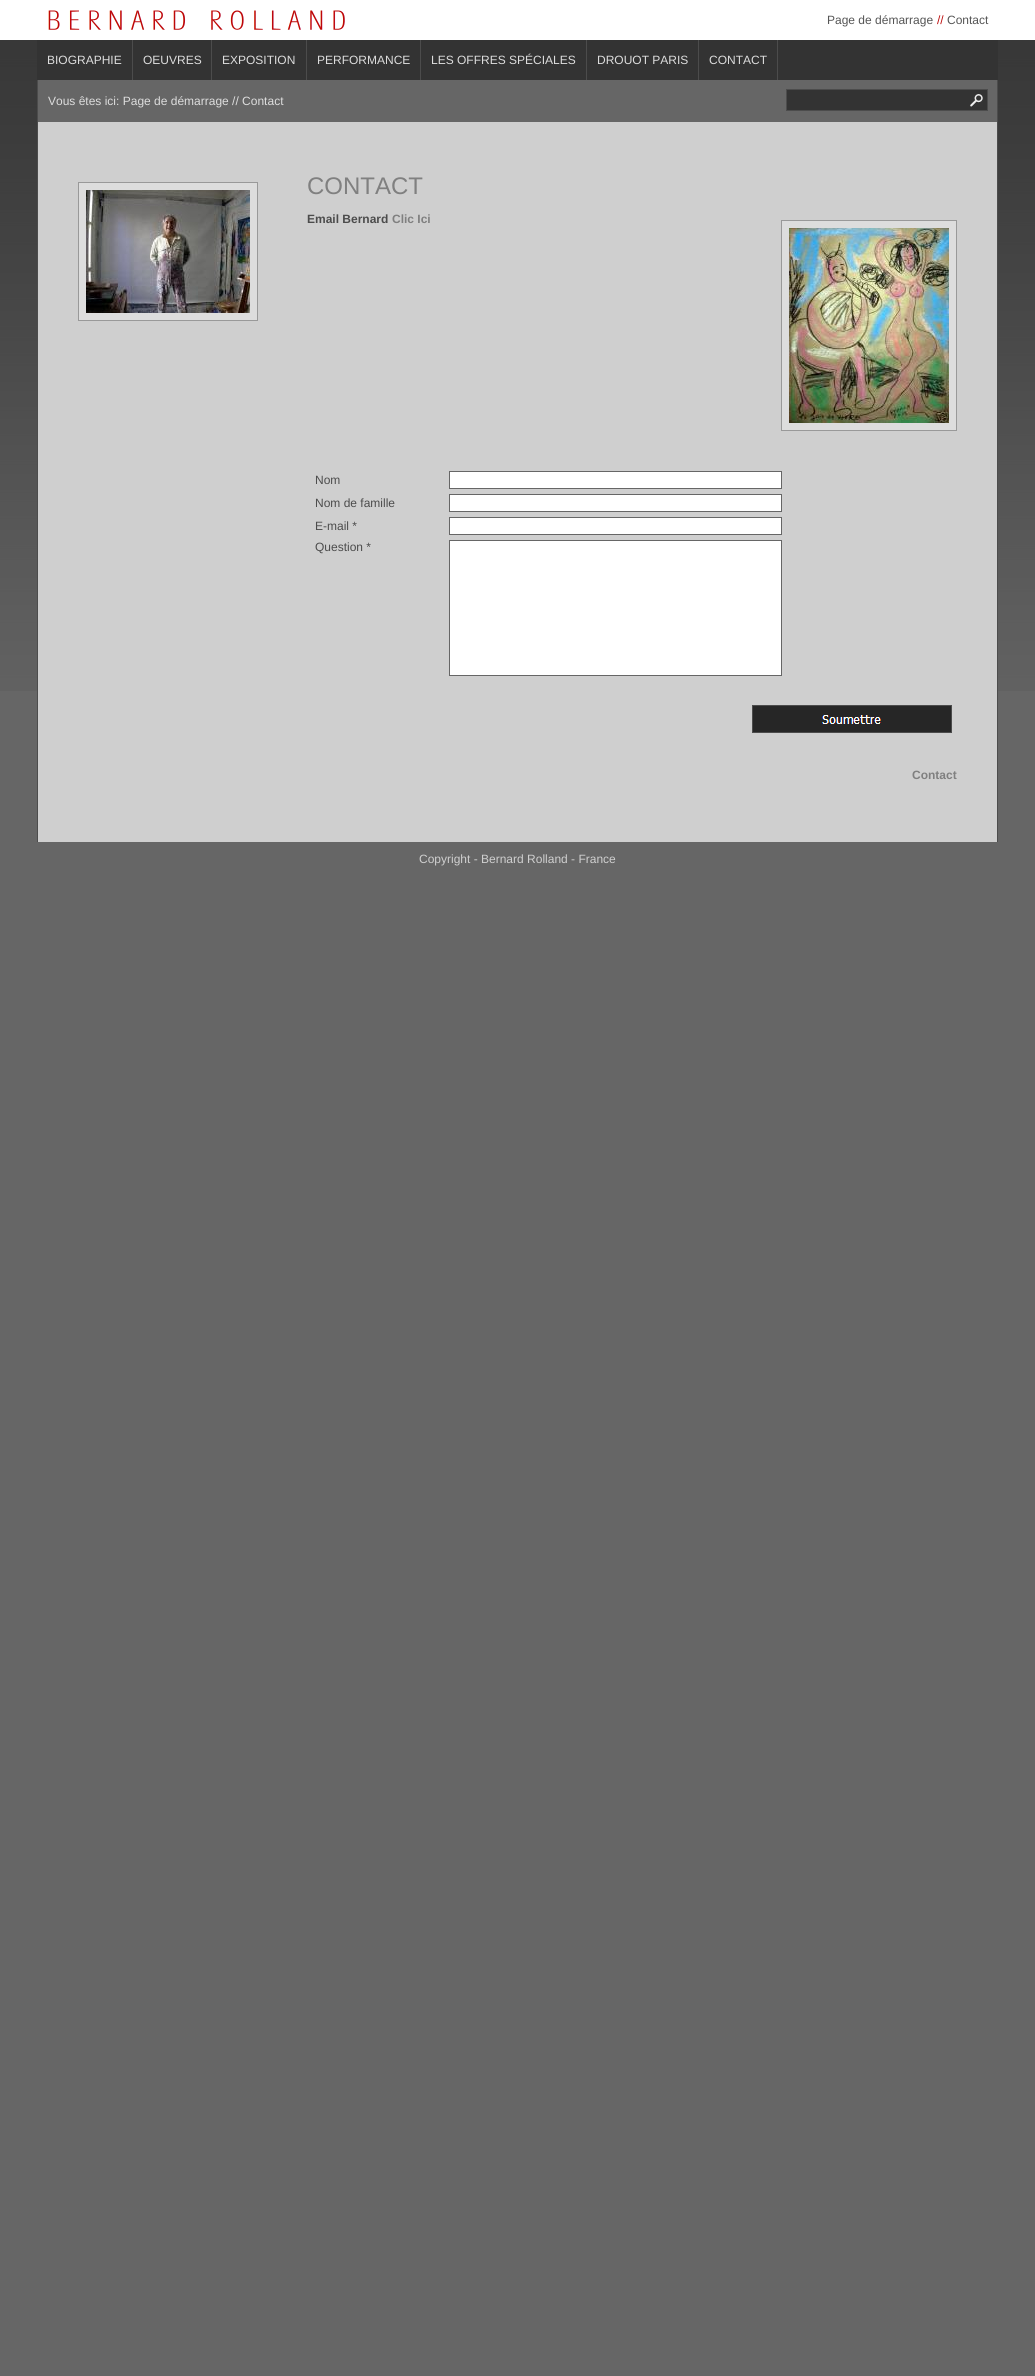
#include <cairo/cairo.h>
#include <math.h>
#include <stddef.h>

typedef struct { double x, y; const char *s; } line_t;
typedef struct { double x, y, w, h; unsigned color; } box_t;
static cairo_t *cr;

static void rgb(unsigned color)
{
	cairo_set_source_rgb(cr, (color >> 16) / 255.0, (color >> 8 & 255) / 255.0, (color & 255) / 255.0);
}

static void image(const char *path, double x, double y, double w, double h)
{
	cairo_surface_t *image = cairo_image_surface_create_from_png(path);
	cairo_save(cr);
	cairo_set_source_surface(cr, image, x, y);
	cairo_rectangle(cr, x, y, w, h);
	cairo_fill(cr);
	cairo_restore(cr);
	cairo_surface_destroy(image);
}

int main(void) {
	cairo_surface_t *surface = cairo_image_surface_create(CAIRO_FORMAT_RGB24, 1035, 2376);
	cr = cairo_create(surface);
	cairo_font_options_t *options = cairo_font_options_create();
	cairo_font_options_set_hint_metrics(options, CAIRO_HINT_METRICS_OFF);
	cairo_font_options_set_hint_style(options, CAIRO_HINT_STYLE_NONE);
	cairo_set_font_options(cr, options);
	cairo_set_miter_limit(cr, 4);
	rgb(0x666666);
	cairo_paint(cr);
	image("img/1.png", 0, 40, 1035, 651);
	rgb(0xffffff);
	cairo_rectangle(cr, 0, 0, 1035, 40);
	cairo_fill(cr);
	image("img/2.png", 47, 0, 941, 40);
	{
		static const box_t items[] = {
			{37, 40, 961, 40, 0x333333},
			{132, 40, 1, 40, 0x4c4c4c},
			{211, 40, 1, 40, 0x4c4c4c},
			{306, 40, 1, 40, 0x4c4c4c},
			{420, 40, 1, 40, 0x4c4c4c},
			{586, 40, 1, 40, 0x4c4c4c},
			{698, 40, 1, 40, 0x4c4c4c},
			{777, 40, 1, 40, 0x4c4c4c},
			{38, 80, 959, 42, 0x666666},
		};
		for (size_t i = 0; i < sizeof items / sizeof *items; i++) {
			rgb(items[i].color);
			cairo_rectangle(cr, items[i].x, items[i].y, items[i].w, items[i].h);
			cairo_fill(cr);
		}
	}
	rgb(0x333333);
	cairo_rectangle(cr, 786.5, 89.5, 201, 21);
	cairo_fill_preserve(cr);
	rgb(0x4c4c4c);
	cairo_set_line_width(cr, 1);
	cairo_stroke(cr);
	image("img/3.png", 970, 94, 13, 13);
	{
		static const box_t items[] = {
			{38, 122, 959, 720, 0xcfcfcf},
			{997, 80, 1, 762, 0x4c4c4c},
			{37, 80, 1, 762, 0x4c4c4c},
		};
		for (size_t i = 0; i < sizeof items / sizeof *items; i++) {
			rgb(items[i].color);
			cairo_rectangle(cr, items[i].x, items[i].y, items[i].w, items[i].h);
			cairo_fill(cr);
		}
	}
	rgb(0xdddddd);
	cairo_rectangle(cr, 78.5, 182.5, 179, 138);
	cairo_fill_preserve(cr);
	rgb(0x999999);
	cairo_stroke(cr);
	image("img/4.png", 86, 190, 164, 123);
	rgb(0xdddddd);
	cairo_rectangle(cr, 781.5, 220.5, 175, 210);
	cairo_fill_preserve(cr);
	rgb(0x999999);
	cairo_stroke(cr);
	image("img/5.png", 789, 228, 160, 195);
	rgb(0xffffff);
	cairo_rectangle(cr, 449.5, 471.5, 332, 17);
	cairo_fill_preserve(cr);
	rgb(0x666666);
	cairo_stroke(cr);
	rgb(0xffffff);
	cairo_rectangle(cr, 449.5, 494.5, 332, 17);
	cairo_fill_preserve(cr);
	rgb(0x666666);
	cairo_stroke(cr);
	rgb(0xffffff);
	cairo_rectangle(cr, 449.5, 517.5, 332, 17);
	cairo_fill_preserve(cr);
	rgb(0x666666);
	cairo_stroke(cr);
	rgb(0xffffff);
	cairo_rectangle(cr, 449.5, 540.5, 332, 135);
	cairo_fill_preserve(cr);
	rgb(0x666666);
	cairo_stroke(cr);
	image("img/6.png", 752, 705, 200, 28);
	cairo_select_font_face(cr, "Liberation Sans", CAIRO_FONT_SLANT_NORMAL, CAIRO_FONT_WEIGHT_NORMAL);
	cairo_set_font_size(cr, 12);
	rgb(0x555555);
	cairo_move_to(cr, 827, 24);
	cairo_show_text(cr, "Page de démarrage");
	rgb(0xbd0e0e);
	cairo_move_to(cr, 937, 24);
	cairo_show_text(cr, "//");
	rgb(0x555555);
	cairo_move_to(cr, 947, 24);
	cairo_show_text(cr, "Contact");
	rgb(0xdddddd);
	{
		static const line_t items[] = {
			{47, 64, "BIOGRAPHIE"},
			{143, 64, "OEUVRES"},
			{222, 64, "EXPOSITION"},
			{317, 64, "PERFORMANCE"},
			{431, 64, "LES OFFRES SPÉCIALES"},
			{597, 64, "DROUOT PARIS"},
			{709, 64, "CONTACT"},
			{48, 105, "Vous êtes ici: Page de démarrage // Contact"},
		};
		for (size_t i = 0; i < sizeof items / sizeof *items; i++) {
			cairo_move_to(cr, items[i].x, items[i].y);
			cairo_show_text(cr, items[i].s);
		}
	}
	cairo_set_font_size(cr, 24);
	rgb(0x808080);
	cairo_move_to(cr, 307, 194);
	cairo_show_text(cr, "CONTACT");
	cairo_select_font_face(cr, "Liberation Sans", CAIRO_FONT_SLANT_NORMAL, CAIRO_FONT_WEIGHT_BOLD);
	cairo_set_font_size(cr, 12);
	rgb(0x4c4c4c);
	cairo_move_to(cr, 307, 223);
	cairo_show_text(cr, "Email Bernard");
	rgb(0x808080);
	cairo_move_to(cr, 392, 223);
	cairo_show_text(cr, "Clic Ici");
	cairo_select_font_face(cr, "Liberation Sans", CAIRO_FONT_SLANT_NORMAL, CAIRO_FONT_WEIGHT_NORMAL);
	rgb(0x4c4c4c);
	{
		static const line_t items[] = {
			{315, 484, "Nom"},
			{315, 507, "Nom de famille"},
			{315, 530, "E-mail *"},
			{315, 551, "Question *"},
		};
		for (size_t i = 0; i < sizeof items / sizeof *items; i++) {
			cairo_move_to(cr, items[i].x, items[i].y);
			cairo_show_text(cr, items[i].s);
		}
	}
	cairo_select_font_face(cr, "Liberation Sans", CAIRO_FONT_SLANT_NORMAL, CAIRO_FONT_WEIGHT_BOLD);
	rgb(0x808080);
	cairo_move_to(cr, 912, 779);
	cairo_show_text(cr, "Contact");
	cairo_select_font_face(cr, "Liberation Sans", CAIRO_FONT_SLANT_NORMAL, CAIRO_FONT_WEIGHT_NORMAL);
	rgb(0xcfcfcf);
	cairo_move_to(cr, 419, 863);
	cairo_show_text(cr, "Copyright - Bernard Rolland - France");
	cairo_surface_write_to_png(surface, "page.png");
	cairo_font_options_destroy(options);
	cairo_destroy(cr);
	cairo_surface_destroy(surface);
	return 0;
}
